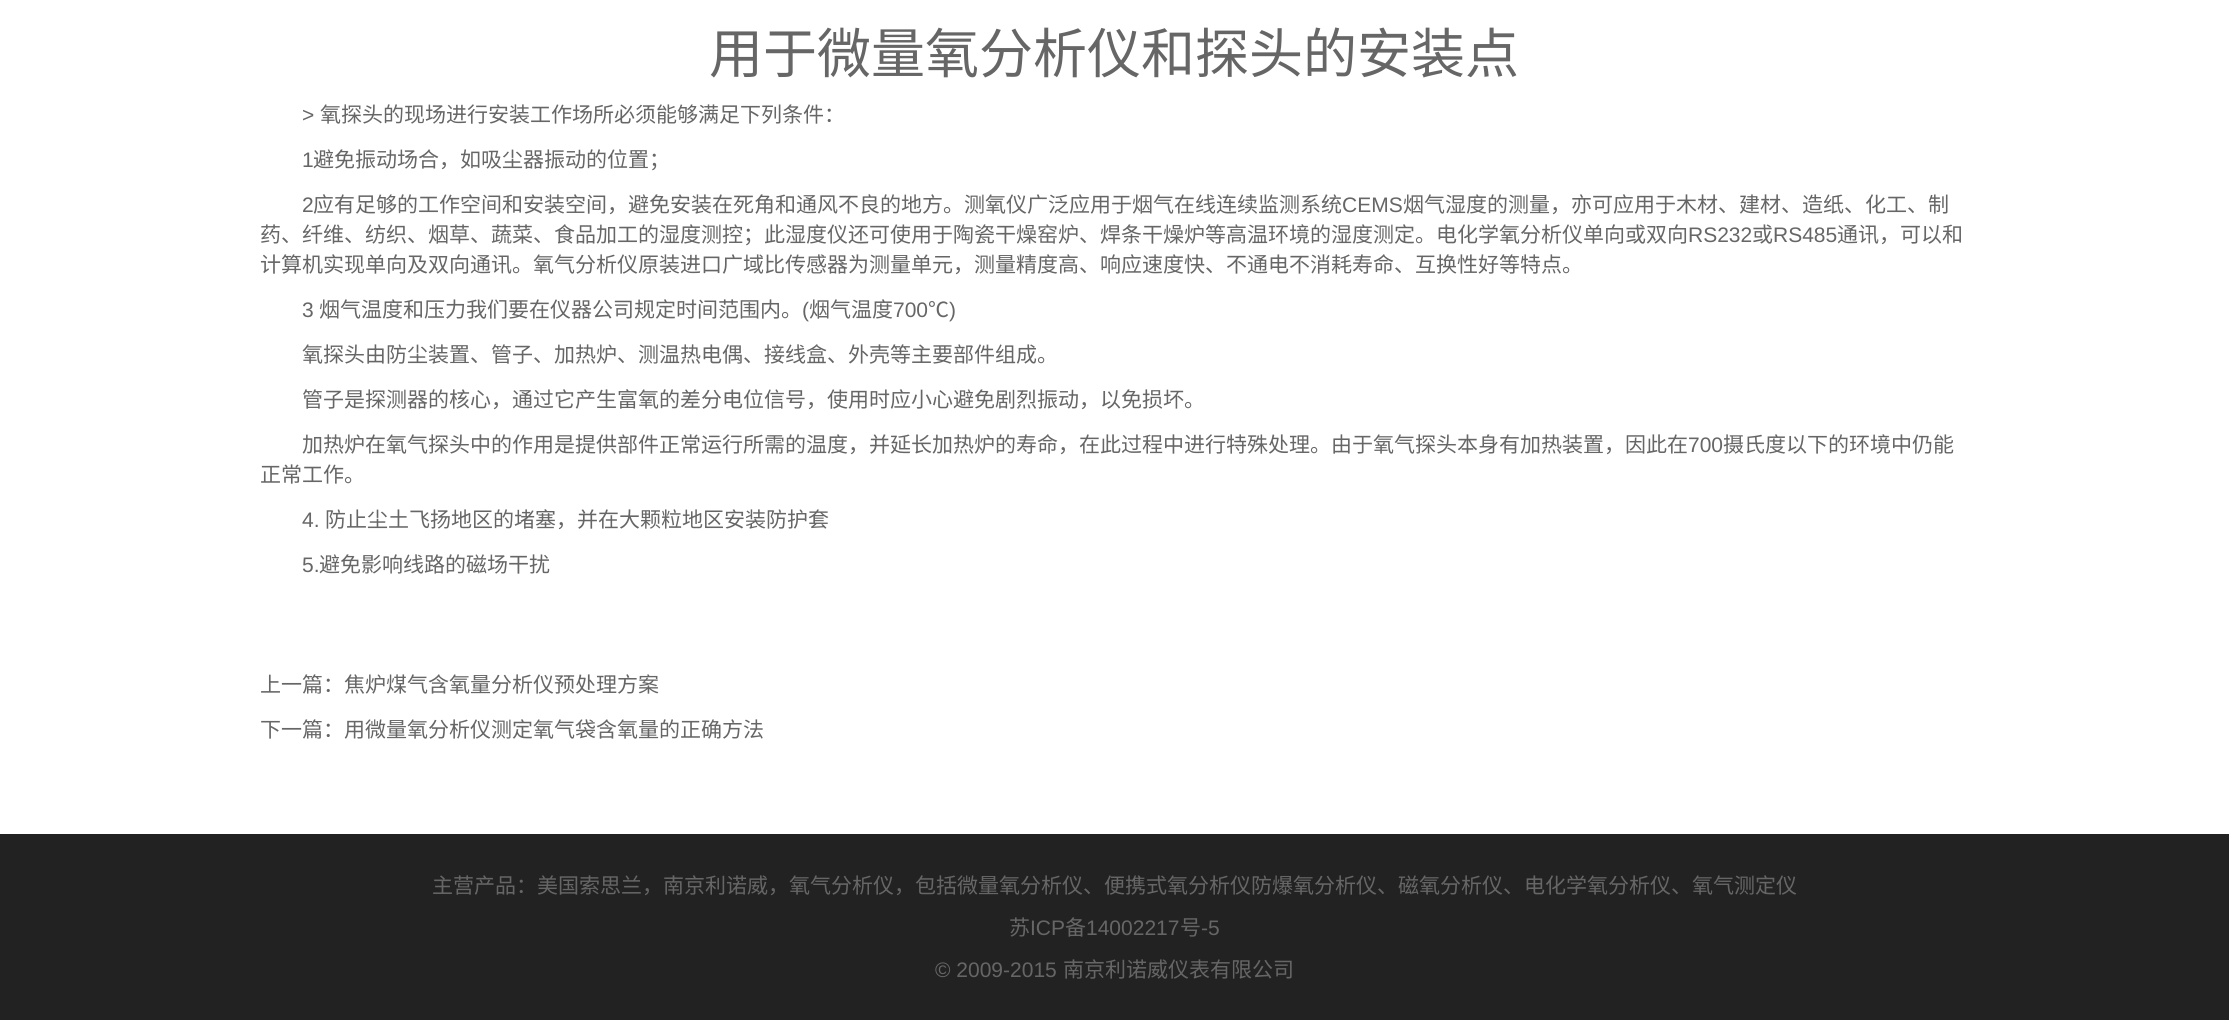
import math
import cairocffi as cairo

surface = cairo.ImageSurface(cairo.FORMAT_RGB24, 2229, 1020)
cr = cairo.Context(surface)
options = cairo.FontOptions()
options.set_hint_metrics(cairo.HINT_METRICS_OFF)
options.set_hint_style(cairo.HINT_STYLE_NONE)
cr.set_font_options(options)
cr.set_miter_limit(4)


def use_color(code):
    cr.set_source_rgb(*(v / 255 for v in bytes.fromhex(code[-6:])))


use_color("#ffffff")
cr.paint()
cr.select_font_face("Noto Sans CJK SC")
cr.set_font_size(54)
use_color("#666666")
cr.move_to(709, 73)
cr.show_text("用于微量氧分析仪和探头的安装点")
cr.select_font_face("Liberation Sans")
cr.set_font_size(21)
cr.move_to(302, 122)
cr.show_text(">")
cr.select_font_face("Noto Sans CJK SC")
cr.move_to(320, 122)
cr.show_text("氧探头的现场进行安装工作场所必须能够满足下列条件：")
cr.select_font_face("Liberation Sans")
cr.move_to(302, 167)
cr.show_text("1")
cr.select_font_face("Noto Sans CJK SC")
cr.move_to(313, 167)
cr.show_text("避免振动场合，如吸尘器振动的位置；")
cr.select_font_face("Liberation Sans")
cr.move_to(302, 212)
cr.show_text("2")
cr.select_font_face("Noto Sans CJK SC")
cr.move_to(313, 212)
cr.show_text("应有足够的工作空间和安装空间，避免安装在死角和通风不良的地方。测氧仪广泛应用于烟气在线连续监测系统")
cr.select_font_face("Liberation Sans")
cr.move_to(1342, 212)
cr.show_text("CEMS")
cr.select_font_face("Noto Sans CJK SC")
cr.move_to(1403, 212)
cr.show_text("烟气湿度的测量，亦可应用于木材、建材、造纸、化工、制")
cr.move_to(260, 242)
cr.show_text("药、纤维、纺织、烟草、蔬菜、食品加工的湿度测控；此湿度仪还可使用于陶瓷干燥窑炉、焊条干燥炉等高温环境的湿度测定。电化学氧分析仪单向或双向")
cr.select_font_face("Liberation Sans")
cr.move_to(1688, 242)
cr.show_text("RS232")
cr.select_font_face("Noto Sans CJK SC")
cr.move_to(1752, 242)
cr.show_text("或")
cr.select_font_face("Liberation Sans")
cr.move_to(1773, 242)
cr.show_text("RS485")
cr.select_font_face("Noto Sans CJK SC")
cr.move_to(1837, 242)
cr.show_text("通讯，可以和")
cr.move_to(260, 272)
cr.show_text("计算机实现单向及双向通讯。氧气分析仪原装进口广域比传感器为测量单元，测量精度高、响应速度快、不通电不消耗寿命、互换性好等特点。")
cr.select_font_face("Liberation Sans")
cr.move_to(302, 317)
cr.show_text("3")
cr.select_font_face("Noto Sans CJK SC")
cr.move_to(319, 317)
cr.show_text("烟气温度和压力我们要在仪器公司规定时间范围内。")
cr.select_font_face("Liberation Sans")
cr.move_to(802, 317)
cr.show_text("(")
cr.select_font_face("Noto Sans CJK SC")
cr.move_to(809, 317)
cr.show_text("烟气温度")
cr.select_font_face("Liberation Sans")
cr.move_to(893, 317)
cr.show_text("700")
cr.select_font_face("Noto Sans CJK SC")
cr.move_to(928, 317)
cr.show_text("℃")
cr.select_font_face("Liberation Sans")
cr.move_to(949, 317)
cr.show_text(")")
cr.select_font_face("Noto Sans CJK SC")
cr.move_to(302, 362)
cr.show_text("氧探头由防尘装置、管子、加热炉、测温热电偶、接线盒、外壳等主要部件组成。")
cr.move_to(302, 407)
cr.show_text("管子是探测器的核心，通过它产生富氧的差分电位信号，使用时应小心避免剧烈振动，以免损坏。")
cr.move_to(302, 452)
cr.show_text("加热炉在氧气探头中的作用是提供部件正常运行所需的温度，并延长加热炉的寿命，在此过程中进行特殊处理。由于氧气探头本身有加热装置，因此在")
cr.select_font_face("Liberation Sans")
cr.move_to(1688, 452)
cr.show_text("700")
cr.select_font_face("Noto Sans CJK SC")
cr.move_to(1723, 452)
cr.show_text("摄氏度以下的环境中仍能")
cr.move_to(260, 482)
cr.show_text("正常工作。")
cr.select_font_face("Liberation Sans")
cr.move_to(302, 527)
cr.show_text("4.")
cr.select_font_face("Noto Sans CJK SC")
cr.move_to(325, 527)
cr.show_text("防止尘土飞扬地区的堵塞，并在大颗粒地区安装防护套")
cr.select_font_face("Liberation Sans")
cr.move_to(302, 572)
cr.show_text("5.")
cr.select_font_face("Noto Sans CJK SC")
cr.move_to(319, 572)
cr.show_text("避免影响线路的磁场干扰")
cr.move_to(260, 692)
cr.show_text("上一篇：焦炉煤气含氧量分析仪预处理方案")
cr.move_to(260, 737)
cr.show_text("下一篇：用微量氧分析仪测定氧气袋含氧量的正确方法")
use_color("#222222")
cr.rectangle(0, 834, 2229, 186)
cr.fill()
use_color("#666666")
cr.move_to(432, 893)
cr.show_text("主营产品：美国索思兰，南京利诺威，氧气分析仪，包括微量氧分析仪、便携式氧分析仪防爆氧分析仪、磁氧分析仪、电化学氧分析仪、氧气测定仪")
cr.move_to(1009, 935)
cr.show_text("苏")
cr.select_font_face("Liberation Sans")
cr.move_to(1030, 935)
cr.show_text("ICP")
cr.select_font_face("Noto Sans CJK SC")
cr.move_to(1065, 935)
cr.show_text("备")
cr.select_font_face("Liberation Sans")
cr.move_to(1086, 935)
cr.show_text("14002217")
cr.select_font_face("Noto Sans CJK SC")
cr.move_to(1180, 935)
cr.show_text("号")
cr.select_font_face("Liberation Sans")
cr.move_to(1201, 935)
cr.show_text("-5")
cr.move_to(935, 977)
cr.show_text("© 2009-2015")
cr.select_font_face("Noto Sans CJK SC")
cr.move_to(1063, 977)
cr.show_text("南京利诺威仪表有限公司")
surface.write_to_png("result.png")
